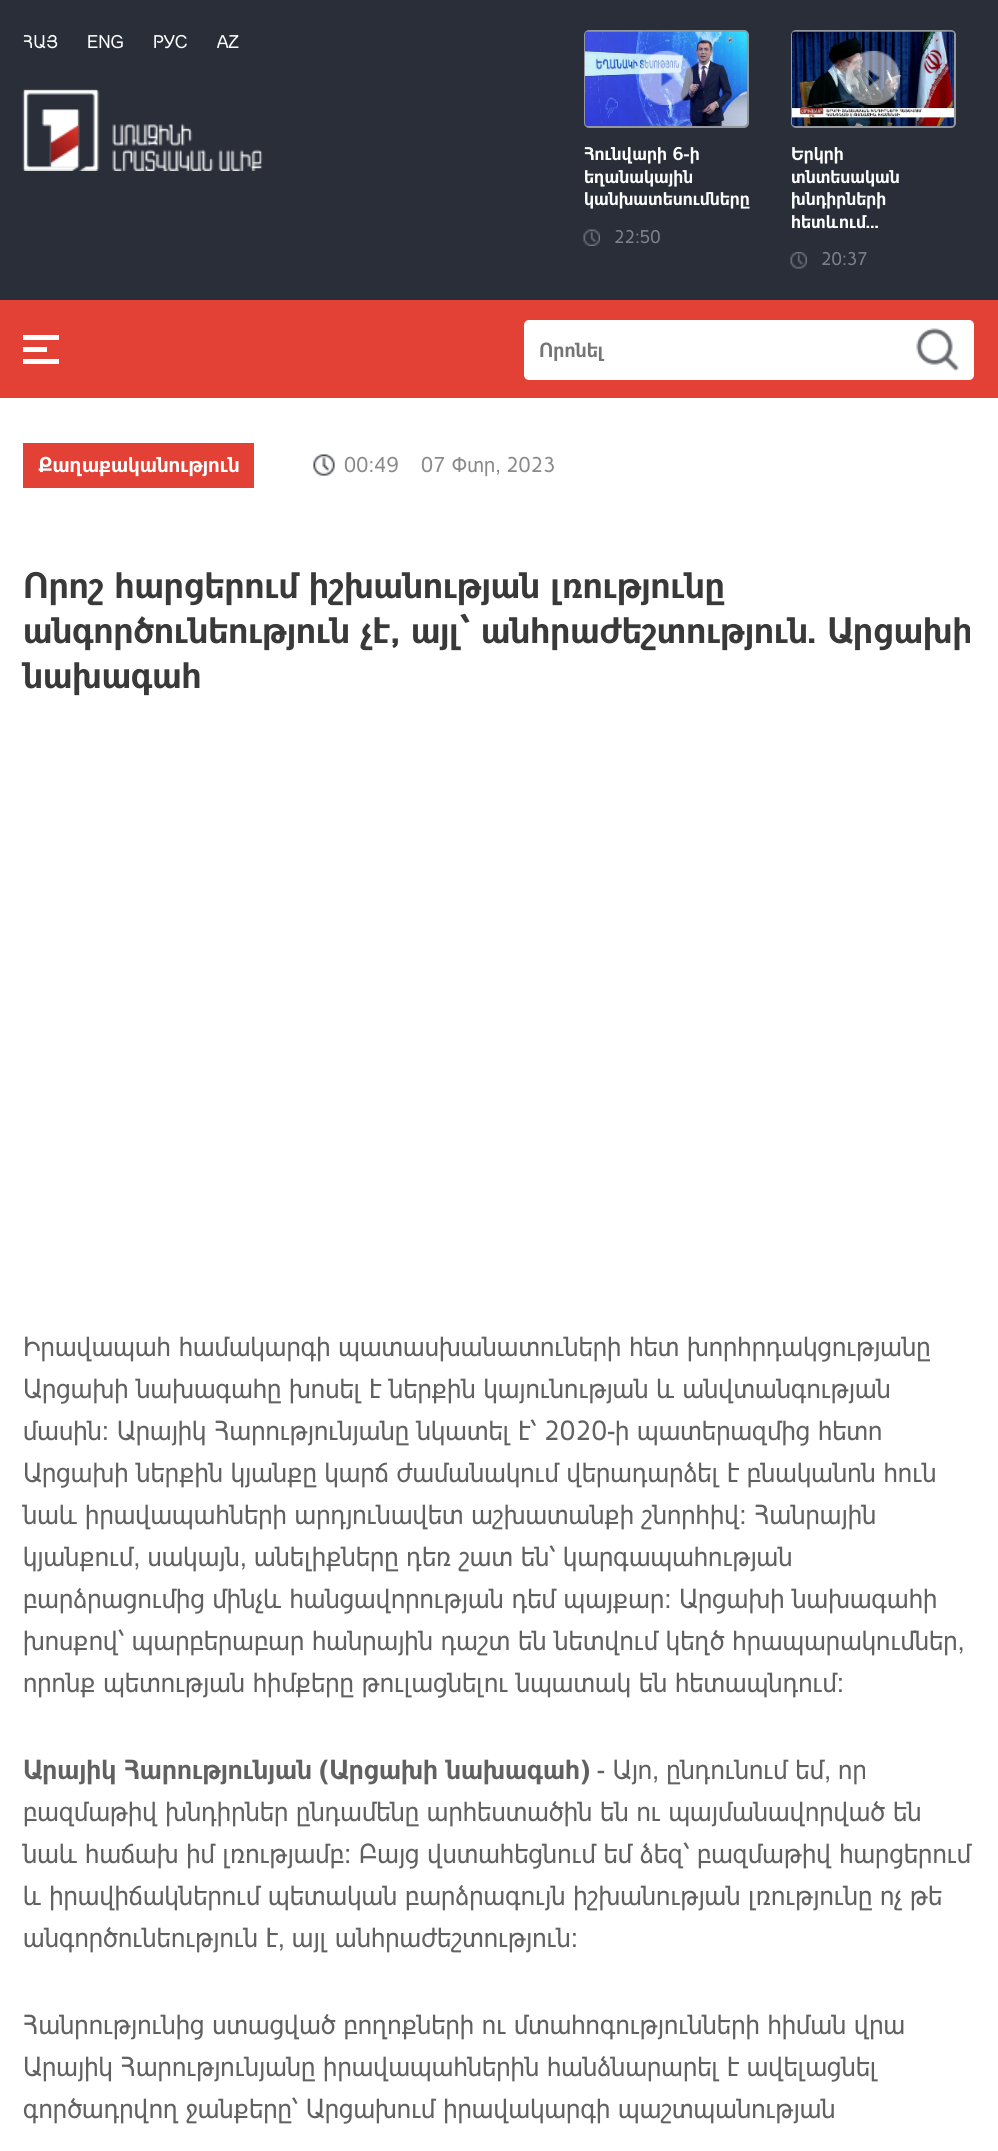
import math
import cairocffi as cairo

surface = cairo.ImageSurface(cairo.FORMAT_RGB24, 998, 2151)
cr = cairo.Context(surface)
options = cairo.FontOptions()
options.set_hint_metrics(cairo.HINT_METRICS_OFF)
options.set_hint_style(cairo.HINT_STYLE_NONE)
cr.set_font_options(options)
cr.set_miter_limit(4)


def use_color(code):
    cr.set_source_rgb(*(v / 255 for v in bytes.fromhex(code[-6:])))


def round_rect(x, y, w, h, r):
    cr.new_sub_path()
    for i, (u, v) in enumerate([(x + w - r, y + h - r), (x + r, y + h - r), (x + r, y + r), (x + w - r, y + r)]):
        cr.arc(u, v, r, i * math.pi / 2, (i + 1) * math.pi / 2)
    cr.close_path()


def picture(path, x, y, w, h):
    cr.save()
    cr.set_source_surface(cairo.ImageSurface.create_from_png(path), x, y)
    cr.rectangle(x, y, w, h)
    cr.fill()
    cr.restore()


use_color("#ffffff")
cr.paint()
use_color("#292e39")
cr.rectangle(0, 0, 998, 300)
cr.fill()
cr.select_font_face("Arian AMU")
cr.set_font_size(18)
use_color("#ffffff")
cr.move_to(23, 48)
cr.show_text("ՀԱՅ")
cr.move_to(87, 48)
cr.show_text("ENG")
cr.move_to(153, 48)
cr.show_text("РУС")
cr.move_to(217, 48)
cr.show_text("AZ")
picture("img1.png", 22, 89, 241, 82)
round_rect(585, 31, 163, 96, 4)
use_color("#94979c")
cr.stroke()
picture("img2.png", 585, 31, 162, 95)
picture("img3.png", 639, 51, 54, 54)
cr.select_font_face("Arian AMU", cairo.FONT_SLANT_NORMAL, cairo.FONT_WEIGHT_BOLD)
use_color("#ffffff")
cr.move_to(584, 160)
cr.show_text("Հունվարի 6-ի")
cr.move_to(584, 183)
cr.show_text("եղանակային")
cr.move_to(584, 205)
cr.show_text("կանխատեսումները")
picture("img4.png", 583, 229, 17, 17)
cr.select_font_face("Arian AMU")
use_color("#7f8288")
cr.move_to(614, 243)
cr.show_text("22:50")
round_rect(792, 31, 163, 96, 4)
use_color("#94979c")
cr.stroke()
picture("img5.png", 792, 31, 162, 95)
picture("img6.png", 846, 51, 54, 54)
cr.select_font_face("Arian AMU", cairo.FONT_SLANT_NORMAL, cairo.FONT_WEIGHT_BOLD)
use_color("#ffffff")
cr.move_to(791, 160)
cr.show_text("Երկրի")
cr.move_to(791, 183)
cr.show_text("տնտեսական")
cr.move_to(791, 205)
cr.show_text("խնդիրների")
cr.move_to(791, 228)
cr.show_text("հետևում...")
picture("img7.png", 790, 252, 17, 17)
cr.select_font_face("Arian AMU")
use_color("#7f8288")
cr.move_to(821, 265)
cr.show_text("20:37")
use_color("#e34135")
cr.rectangle(0, 300, 998, 98)
cr.fill()
use_color("#ffffff")
cr.rectangle(23, 335, 36, 5)
cr.fill()
cr.rectangle(23, 347, 24, 5)
cr.fill()
cr.rectangle(23, 359, 36, 5)
cr.fill()
round_rect(524, 320, 450, 60, 5)
cr.fill()
cr.select_font_face("Arian AMU", cairo.FONT_SLANT_NORMAL, cairo.FONT_WEIGHT_BOLD)
cr.set_font_size(20)
use_color("#757575")
cr.move_to(539, 357)
cr.show_text("Որոնել")
picture("img8.png", 916, 328, 43, 43)
use_color("#e34135")
cr.rectangle(23, 443, 231, 45)
cr.fill()
cr.set_font_size(21)
use_color("#ffffff")
cr.move_to(38, 472)
cr.show_text("Քաղաքականություն")
picture("img9.png", 313, 454, 22, 22)
cr.select_font_face("Arian AMU")
use_color("#8a8a8a")
cr.move_to(344, 472)
cr.show_text("00:49")
cr.move_to(421, 472)
cr.show_text("07 Փտր, 2023")
cr.select_font_face("Arian AMU", cairo.FONT_SLANT_NORMAL, cairo.FONT_WEIGHT_BOLD)
cr.set_font_size(36)
use_color("#393939")
cr.move_to(23, 598)
cr.show_text("Որոշ հարցերում իշխանության լռությունը")
cr.move_to(23, 643)
cr.show_text("անգործունեություն չէ, այլ՝ անհրաժեշտություն. Արցախի")
cr.move_to(23, 688)
cr.show_text("նախագահ")
cr.select_font_face("Arian AMU")
cr.set_font_size(27)
use_color("#616161")
cr.move_to(23, 1356)
cr.show_text("Իրավապահ համակարգի պատասխանատուների հետ խորհրդակցությանը")
cr.move_to(23, 1398)
cr.show_text("Արցախի նախագահը խոսել է ներքին կայունության և անվտանգության")
cr.move_to(23, 1440)
cr.show_text("մասին: Արայիկ Հարությունյանը նկատել է՝ 2020-ի պատերազմից հետո")
cr.move_to(23, 1482)
cr.show_text("Արցախի ներքին կյանքը կարճ ժամանակում վերադարձել է բնականոն հուն")
cr.move_to(23, 1524)
cr.show_text("նաև իրավապահների արդյունավետ աշխատանքի շնորհիվ: Հանրային")
cr.move_to(23, 1566)
cr.show_text("կյանքում, սակայն, անելիքները դեռ շատ են՝ կարգապահության")
cr.move_to(23, 1608)
cr.show_text("բարձրացումից մինչև հանցավորության դեմ պայքար: Արցախի նախագահի")
cr.move_to(23, 1650)
cr.show_text("խոսքով՝ պարբերաբար հանրային դաշտ են նետվում կեղծ հրապարակումներ,")
cr.move_to(23, 1692)
cr.show_text("որոնք պետության հիմքերը թուլացնելու նպատակ են հետապնդում:")
cr.select_font_face("Arian AMU", cairo.FONT_SLANT_NORMAL, cairo.FONT_WEIGHT_BOLD)
cr.move_to(23, 1779)
cr.show_text("Արայիկ Հարությունյան (Արցախի նախագահ)")
cr.select_font_face("Arian AMU")
cr.move_to(597, 1779)
cr.show_text("- Այո, ընդունում եմ, որ")
cr.move_to(23, 1821)
cr.show_text("բազմաթիվ խնդիրներ ընդամենը արհեստածին են ու պայմանավորված են")
cr.move_to(23, 1863)
cr.show_text("նաև հաճախ իմ լռությամբ: Բայց վստահեցնում եմ ձեզ՝ բազմաթիվ հարցերում")
cr.move_to(23, 1905)
cr.show_text("և իրավիճակներում պետական բարձրագույն իշխանության լռությունը ոչ թե")
cr.move_to(23, 1947)
cr.show_text("անգործունեություն է, այլ անհրաժեշտություն:")
cr.move_to(23, 2034)
cr.show_text("Հանրությունից ստացված բողոքների ու մտահոգությունների հիման վրա")
cr.move_to(23, 2076)
cr.show_text("Արայիկ Հարությունյանը իրավապահներին հանձնարարել է ավելացնել")
cr.move_to(23, 2118)
cr.show_text("գործադրվող ջանքերը՝ Արցախում իրավակարգի պաշտպանության")
surface.write_to_png("result.png")
